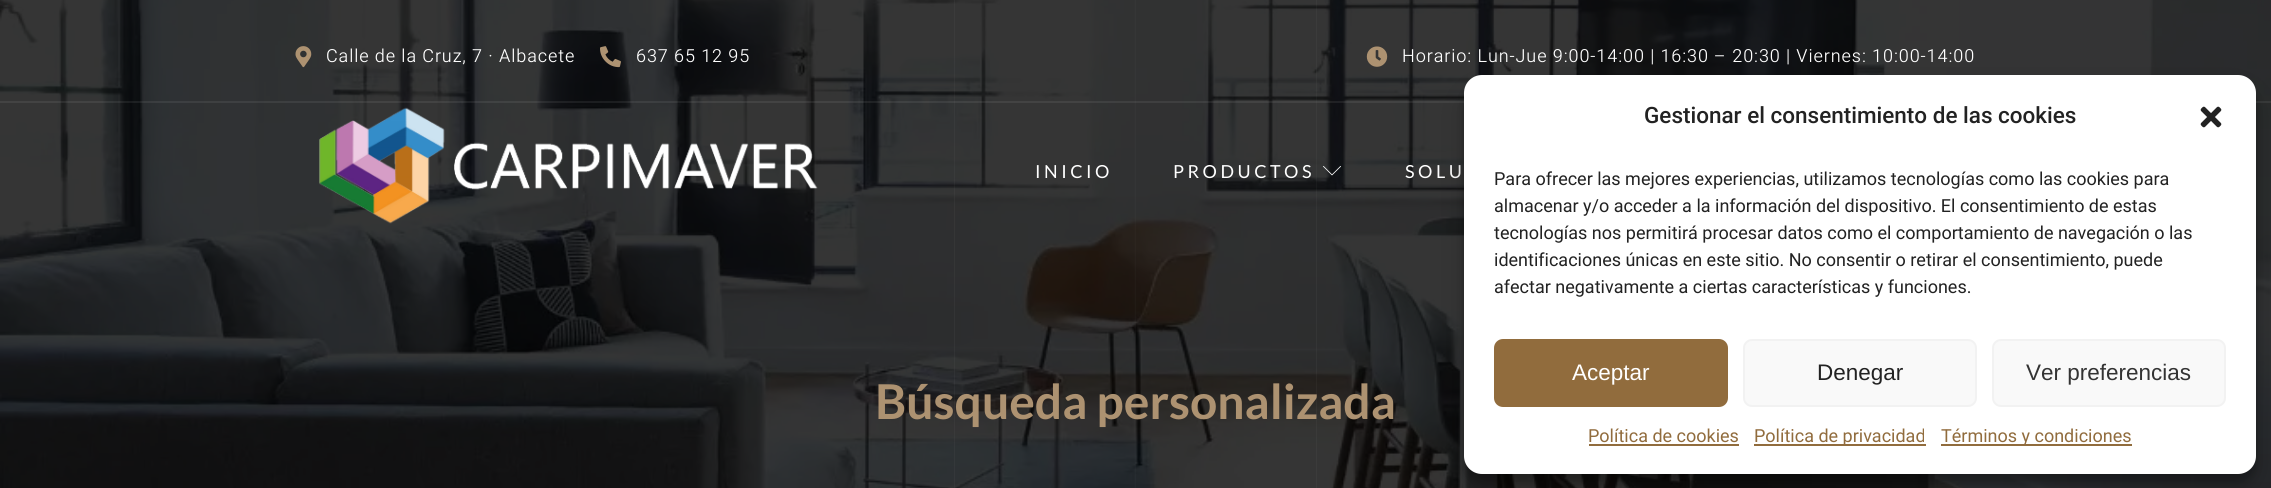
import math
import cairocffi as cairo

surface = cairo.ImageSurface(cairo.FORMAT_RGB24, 2271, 488)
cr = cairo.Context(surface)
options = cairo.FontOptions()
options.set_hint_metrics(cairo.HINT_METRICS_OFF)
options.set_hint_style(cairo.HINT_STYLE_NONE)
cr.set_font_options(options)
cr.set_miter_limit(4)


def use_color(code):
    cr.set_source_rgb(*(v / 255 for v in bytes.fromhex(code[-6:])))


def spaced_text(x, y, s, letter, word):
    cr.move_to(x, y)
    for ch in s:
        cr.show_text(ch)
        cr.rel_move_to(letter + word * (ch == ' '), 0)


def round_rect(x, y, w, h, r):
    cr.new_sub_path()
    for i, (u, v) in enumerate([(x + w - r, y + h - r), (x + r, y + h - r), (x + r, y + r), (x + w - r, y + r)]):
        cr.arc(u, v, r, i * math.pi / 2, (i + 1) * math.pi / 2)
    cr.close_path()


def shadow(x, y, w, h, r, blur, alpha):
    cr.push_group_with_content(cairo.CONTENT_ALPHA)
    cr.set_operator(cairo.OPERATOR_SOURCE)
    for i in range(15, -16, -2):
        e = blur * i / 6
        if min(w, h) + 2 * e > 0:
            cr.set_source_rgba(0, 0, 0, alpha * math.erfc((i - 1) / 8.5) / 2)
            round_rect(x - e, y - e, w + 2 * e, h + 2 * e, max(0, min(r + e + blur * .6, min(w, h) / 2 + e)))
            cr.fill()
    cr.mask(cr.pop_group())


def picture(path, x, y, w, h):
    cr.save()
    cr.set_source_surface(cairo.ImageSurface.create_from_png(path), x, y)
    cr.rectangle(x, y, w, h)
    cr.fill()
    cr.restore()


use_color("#ffffff")
cr.paint()
picture("img6.png", 0, 0, 2271, 488)
picture("img7.png", 954, 0, 363, 488)
cr.set_source_rgba(0.882, 0.882, 0.882, 0.08)
cr.rectangle(0, 101, 2271, 2)
cr.fill()
picture("img1.png", 295, 46, 17, 22)
cr.select_font_face("Heebo Light")
cr.set_font_size(18)
use_color("#ffffff")
spaced_text(326, 62, "Calle de la Cruz, 7 · Albacete", 0.9, 0)
picture("img2.png", 600, 46, 21, 22)
spaced_text(636, 62, "637 65 12 95", 0.9, 0)
picture("img3.png", 1366, 46, 22, 21)
spaced_text(1402, 62, "Horario: Lun-Jue 9:00-14:00 | 16:30 – 20:30 | Viernes: 10:00-14:00", 0.9, 0)
picture("img4.png", 319, 107, 499, 117)
cr.select_font_face("Lato")
spaced_text(1035, 178, "INICIO", 3.5, 0)
spaced_text(1173, 178, "PRODUCTOS", 3.5, 0)
picture("img5.png", 1323, 166, 18, 10)
spaced_text(1405, 178, "SOLU", 3.5, 0)
cr.select_font_face("Lato", cairo.FONT_SLANT_NORMAL, cairo.FONT_WEIGHT_BOLD)
cr.set_font_size(48)
use_color("#ad9271")
cr.move_to(875, 419)
cr.show_text("Búsqueda personalizada")
use_color("#000000")
shadow(1464, 84, 792, 399, 18, 4.5, 0.23)
shadow(1464, 90, 792, 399, 18, 15, 0.19)
use_color("#ffffff")
round_rect(1464, 75, 792, 399, 18)
cr.fill()
cr.select_font_face("Roboto Medium")
cr.set_font_size(22.5)
use_color("#222222")
cr.move_to(1644, 123)
cr.show_text("Gestionar el consentimiento de las cookies")
picture("img8.png", 2200, 106, 22, 22)
cr.select_font_face("Roboto")
cr.set_font_size(18)
cr.move_to(1494, 185)
cr.show_text("Para ofrecer las mejores experiencias, utilizamos tecnologías como las cookies para")
cr.move_to(1494, 212)
cr.show_text("almacenar y/o acceder a la información del dispositivo. El consentimiento de estas")
cr.move_to(1494, 239)
cr.show_text("tecnologías nos permitirá procesar datos como el comportamiento de navegación o las")
cr.move_to(1494, 266)
cr.show_text("identificaciones únicas en este sitio. No consentir o retirar el consentimiento, puede")
cr.move_to(1494, 293)
cr.show_text("afectar negativamente a ciertas características y funciones.")
use_color("#916c3d")
round_rect(1495, 340, 232, 66, 8)
cr.fill_preserve()
cr.stroke()
cr.select_font_face("Liberation Sans")
cr.set_font_size(22.5)
use_color("#ffffff")
cr.move_to(1572, 380)
cr.show_text("Aceptar")
use_color("#f9f9f9")
round_rect(1744, 340, 232, 66, 8)
cr.fill_preserve()
use_color("#f2f2f2")
cr.stroke()
use_color("#222222")
cr.move_to(1817, 380)
cr.show_text("Denegar")
use_color("#f9f9f9")
round_rect(1993, 340, 232, 66, 8)
cr.fill_preserve()
use_color("#f2f2f2")
cr.stroke()
use_color("#333333")
cr.move_to(2026, 380)
cr.show_text("Ver preferencias")
cr.select_font_face("Roboto")
cr.set_font_size(18)
use_color("#916c3d")
cr.move_to(1588, 442)
cr.show_text("Política de cookies")
cr.rectangle(1589, 444, 150, 2)
cr.fill()
cr.rectangle(1754, 444, 172, 2)
cr.fill()
cr.move_to(1754, 442)
cr.show_text("Política de privacidad")
cr.rectangle(1941, 444, 191, 2)
cr.fill()
cr.move_to(1941, 442)
cr.show_text("Términos y condiciones")
surface.write_to_png("result.png")
